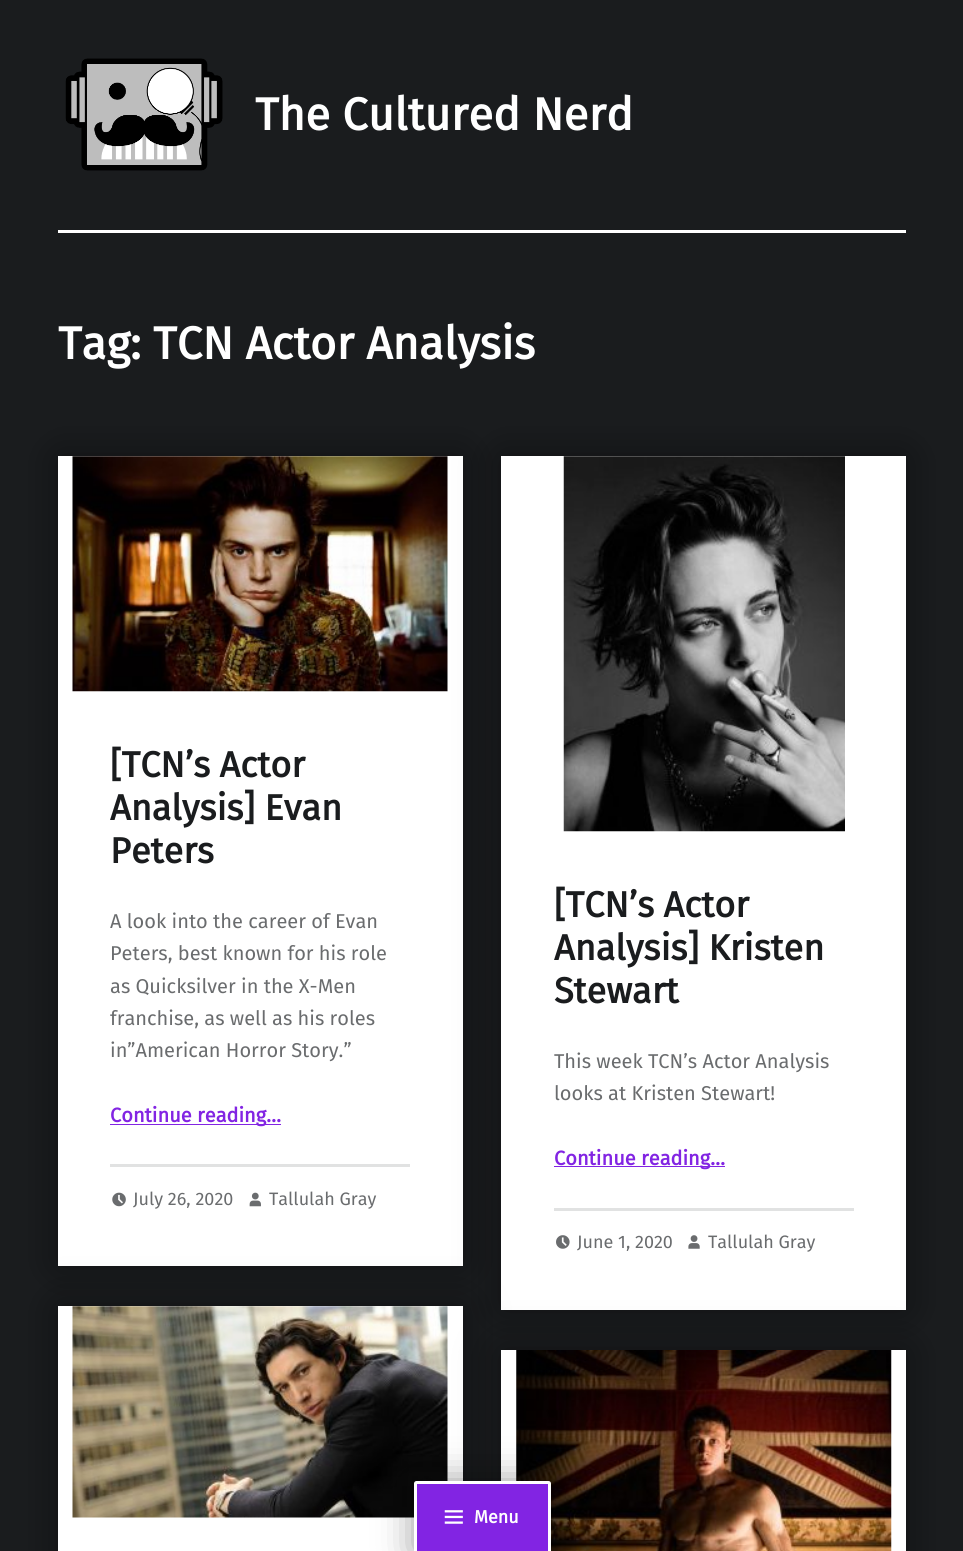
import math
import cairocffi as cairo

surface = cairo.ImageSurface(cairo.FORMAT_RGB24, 963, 1551)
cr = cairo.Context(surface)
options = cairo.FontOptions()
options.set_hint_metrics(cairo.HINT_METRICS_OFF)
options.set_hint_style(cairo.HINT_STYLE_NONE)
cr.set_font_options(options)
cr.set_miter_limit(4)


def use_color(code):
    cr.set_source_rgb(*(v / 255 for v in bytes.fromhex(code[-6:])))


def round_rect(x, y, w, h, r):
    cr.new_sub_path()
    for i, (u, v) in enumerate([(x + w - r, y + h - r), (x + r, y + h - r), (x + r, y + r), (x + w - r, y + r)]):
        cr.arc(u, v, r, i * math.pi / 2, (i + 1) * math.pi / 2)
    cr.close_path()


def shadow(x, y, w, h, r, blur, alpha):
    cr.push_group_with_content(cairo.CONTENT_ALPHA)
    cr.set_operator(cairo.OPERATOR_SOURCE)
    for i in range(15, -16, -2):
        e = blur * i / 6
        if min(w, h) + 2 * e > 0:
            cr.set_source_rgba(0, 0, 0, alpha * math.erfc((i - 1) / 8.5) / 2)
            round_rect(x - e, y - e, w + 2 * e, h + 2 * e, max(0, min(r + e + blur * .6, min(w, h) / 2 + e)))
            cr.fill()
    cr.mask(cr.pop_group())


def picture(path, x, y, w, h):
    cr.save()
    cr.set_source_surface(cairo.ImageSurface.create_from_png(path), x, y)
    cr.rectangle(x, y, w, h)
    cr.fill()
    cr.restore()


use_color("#1a1c1e")
cr.paint()
picture("img1.png", 65, 58, 158, 113)
cr.select_font_face("Fira Sans", cairo.FONT_SLANT_NORMAL, cairo.FONT_WEIGHT_BOLD)
cr.set_font_size(45.6)
use_color("#ffffff")
cr.move_to(255, 130)
cr.show_text("The Cultured Nerd")
use_color("#000000")
shadow(58, 456, 405, 810, 0, 20, 0.4)
use_color("#ffffff")
cr.rectangle(58, 456, 405, 810)
cr.fill()
picture("img3.png", 72, 456, 376, 236)
use_color("#000000")
shadow(501, 456, 405, 854, 0, 20, 0.4)
use_color("#ffffff")
cr.rectangle(501, 456, 405, 854)
cr.fill()
use_color("#000000")
shadow(58, 1306, 405, 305, 0, 20, 0.4)
use_color("#ffffff")
cr.rectangle(58, 1306, 405, 245)
cr.fill()
picture("img9.png", 72, 1306, 376, 212)
use_color("#000000")
shadow(501, 1350, 405, 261, 0, 20, 0.4)
use_color("#ffffff")
cr.rectangle(501, 1350, 405, 201)
cr.fill()
picture("img10.png", 516, 1350, 376, 201)
use_color("#000000")
shadow(414, 1481, 137, 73, 2.5, 18, 0.4)
use_color("#8224e3")
round_rect(415.5, 1482.5, 134, 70, 1)
cr.fill_preserve()
use_color("#ffffff")
cr.set_line_width(3)
cr.stroke()
picture("img2.png", 444, 1510, 19, 14)
cr.set_font_size(18)
cr.move_to(474, 1523)
cr.show_text("Menu")
cr.rectangle(58, 230, 848, 3)
cr.fill()
cr.set_font_size(45.6)
cr.move_to(58, 359)
cr.show_text("Tag: TCN Actor Analysis")
cr.set_font_size(36)
use_color("#1a1c1e")
cr.move_to(110, 777)
cr.show_text("[TCN’s Actor")
cr.move_to(110, 820)
cr.show_text("Analysis] Evan")
cr.move_to(110, 863)
cr.show_text("Peters")
cr.select_font_face("Fira Sans")
cr.set_font_size(20)
use_color("#6a6c6e")
cr.move_to(110, 928)
cr.show_text("A look into the career of Evan")
cr.move_to(110, 960)
cr.show_text("Peters, best known for his role")
cr.move_to(110, 993)
cr.show_text("as Quicksilver in the X-Men")
cr.move_to(110, 1025)
cr.show_text("franchise, as well as his roles")
cr.move_to(110, 1057)
cr.show_text("in”American Horror Story.”")
use_color("#8224e3")
cr.rectangle(110, 1124, 156, 1)
cr.fill()
cr.select_font_face("Fira Sans", cairo.FONT_SLANT_NORMAL, cairo.FONT_WEIGHT_BOLD)
cr.move_to(110, 1122)
cr.show_text("Continue reading…")
cr.rectangle(266, 1124, 15, 1)
cr.fill()
use_color("#e1e2e2")
cr.rectangle(110, 1164, 300, 3)
cr.fill()
picture("img4.png", 112, 1192, 14, 15)
cr.select_font_face("Fira Sans")
cr.set_font_size(18)
use_color("#6a6c6e")
cr.move_to(133, 1205)
cr.show_text("July 26, 2020")
picture("img5.png", 249, 1192, 12, 15)
cr.move_to(269, 1205)
cr.show_text("Tallulah Gray")
picture("img6.png", 563, 456, 282, 376)
cr.select_font_face("Fira Sans", cairo.FONT_SLANT_NORMAL, cairo.FONT_WEIGHT_BOLD)
cr.set_font_size(36)
use_color("#1a1c1e")
cr.move_to(554, 917)
cr.show_text("[TCN’s Actor")
cr.move_to(554, 960)
cr.show_text("Analysis] Kristen")
cr.move_to(554, 1003)
cr.show_text("Stewart")
cr.select_font_face("Fira Sans")
cr.set_font_size(20)
use_color("#6a6c6e")
cr.move_to(554, 1068)
cr.show_text("This week TCN’s Actor Analysis")
cr.move_to(554, 1100)
cr.show_text("looks at Kristen Stewart!")
use_color("#8224e3")
cr.rectangle(554, 1166, 156, 1)
cr.fill()
cr.select_font_face("Fira Sans", cairo.FONT_SLANT_NORMAL, cairo.FONT_WEIGHT_BOLD)
cr.move_to(554, 1165)
cr.show_text("Continue reading…")
cr.rectangle(710, 1166, 15, 1)
cr.fill()
use_color("#e1e2e2")
cr.rectangle(554, 1208, 300, 3)
cr.fill()
picture("img7.png", 556, 1235, 14, 14)
cr.select_font_face("Fira Sans")
cr.set_font_size(18)
use_color("#6a6c6e")
cr.move_to(577, 1248)
cr.show_text("June 1, 2020")
picture("img8.png", 688, 1235, 12, 14)
cr.move_to(708, 1248)
cr.show_text("Tallulah Gray")
surface.write_to_png("result.png")
